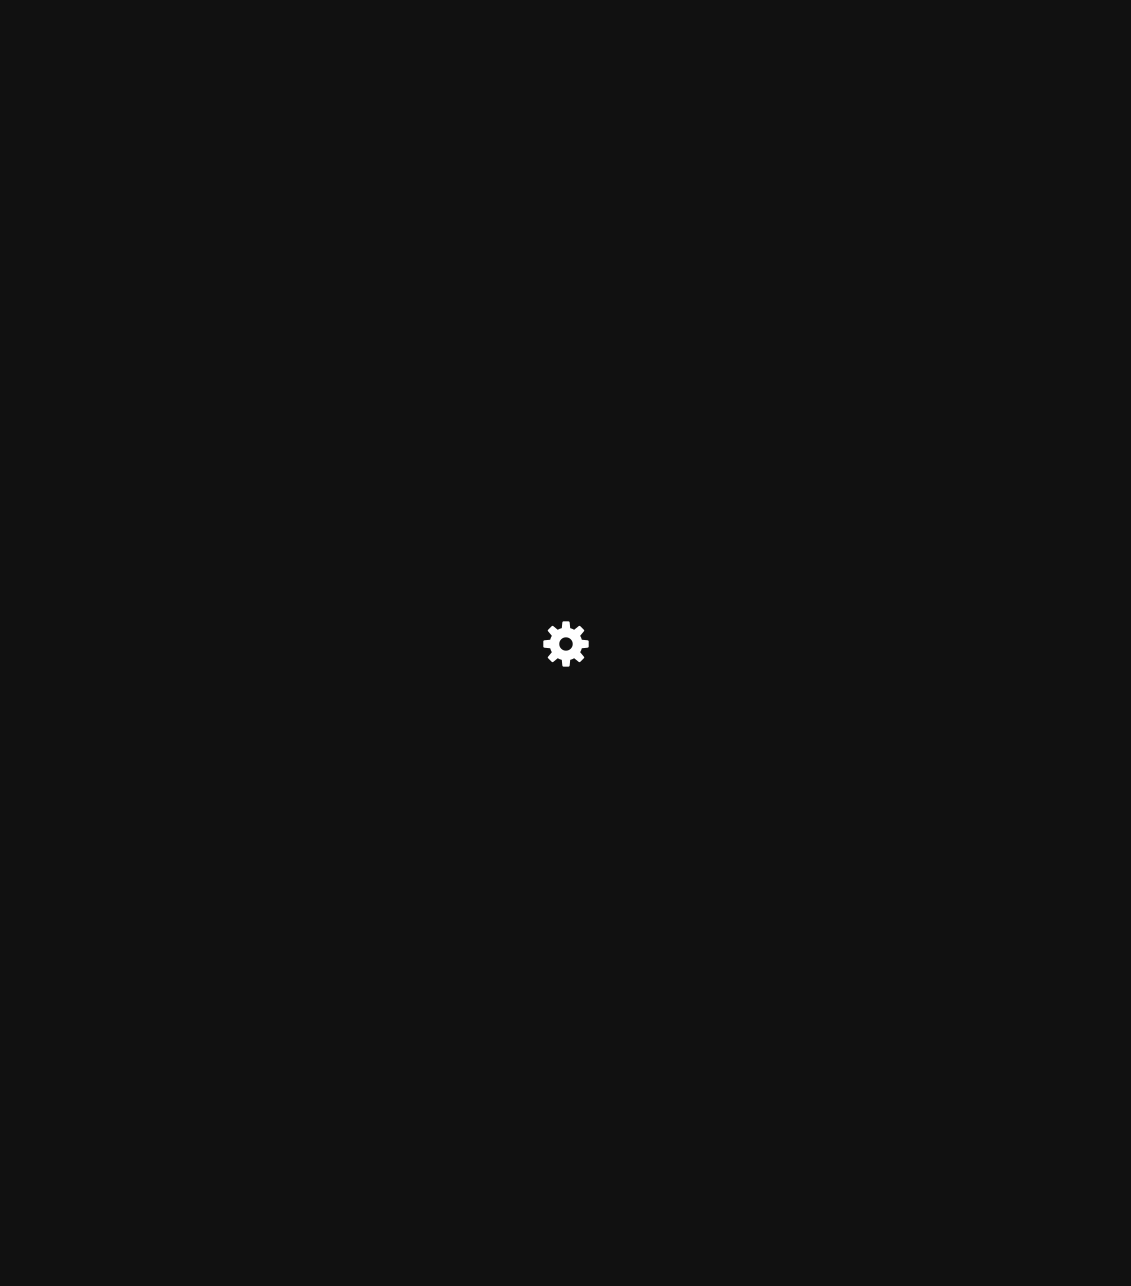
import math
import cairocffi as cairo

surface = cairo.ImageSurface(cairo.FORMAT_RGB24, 1131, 1286)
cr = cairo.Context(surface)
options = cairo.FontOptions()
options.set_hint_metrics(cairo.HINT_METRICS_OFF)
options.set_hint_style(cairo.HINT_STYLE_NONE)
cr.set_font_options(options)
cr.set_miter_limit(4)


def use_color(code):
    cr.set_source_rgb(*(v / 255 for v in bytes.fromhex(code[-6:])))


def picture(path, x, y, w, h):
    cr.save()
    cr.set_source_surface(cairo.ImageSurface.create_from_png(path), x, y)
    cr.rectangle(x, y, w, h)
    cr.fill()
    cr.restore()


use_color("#111111")
cr.paint()
picture("img1.png", 543, 621, 46, 46)
surface.write_to_png("result.png")
